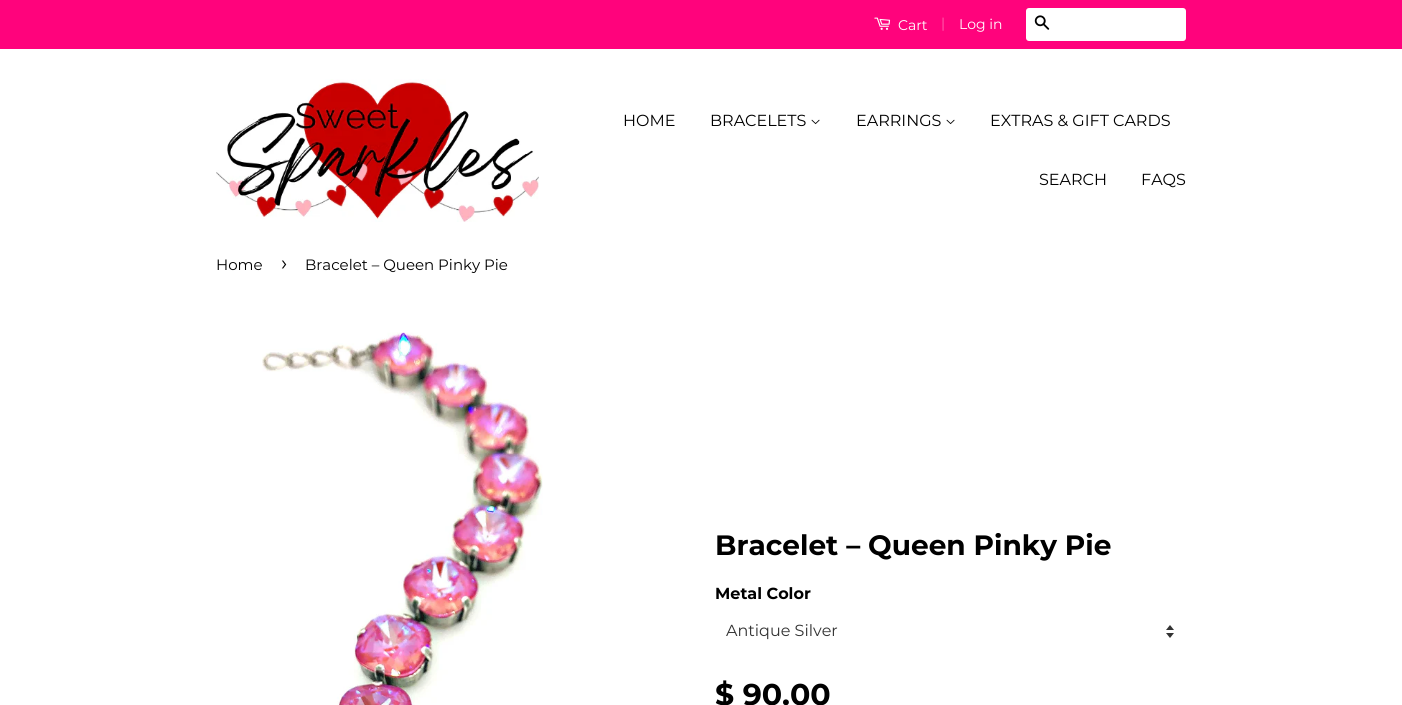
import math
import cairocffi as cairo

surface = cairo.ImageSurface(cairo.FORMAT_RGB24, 1402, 705)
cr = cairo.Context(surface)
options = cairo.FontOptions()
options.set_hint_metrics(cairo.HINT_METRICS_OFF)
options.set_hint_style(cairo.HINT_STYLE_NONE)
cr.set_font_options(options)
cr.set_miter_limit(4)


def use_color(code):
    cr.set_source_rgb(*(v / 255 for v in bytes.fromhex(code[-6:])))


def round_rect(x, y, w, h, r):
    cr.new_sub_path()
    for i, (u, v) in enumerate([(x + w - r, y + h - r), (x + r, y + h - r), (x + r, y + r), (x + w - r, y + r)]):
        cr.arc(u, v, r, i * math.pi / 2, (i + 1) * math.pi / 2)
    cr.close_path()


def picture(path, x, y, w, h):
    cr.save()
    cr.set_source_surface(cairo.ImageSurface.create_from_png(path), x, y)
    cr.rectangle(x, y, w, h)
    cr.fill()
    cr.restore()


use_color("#ffffff")
cr.paint()
use_color("#ff037c")
cr.rectangle(0, 0, 1402, 49)
cr.fill()
picture("img1.png", 874, 17, 17, 13)
cr.select_font_face("Montserrat")
cr.set_font_size(14)
use_color("#ffffff")
cr.move_to(898, 30)
cr.show_text("Cart")
use_color("#ff68b0")
cr.move_to(941, 28)
cr.show_text("|")
use_color("#ffffff")
cr.move_to(959, 29)
cr.show_text("Log in")
round_rect(1026, 8, 160, 33, 3)
cr.fill()
picture("img2.png", 1034, 15, 16, 15)
picture("img3.png", 216, 79, 323, 143)
cr.set_font_size(16)
use_color("#000000")
cr.move_to(623, 126)
cr.show_text("HOME")
cr.move_to(710, 126)
cr.show_text("BRACELETS")
picture("img4.png", 811, 119, 9, 6)
cr.move_to(856, 126)
cr.show_text("EARRINGS")
picture("img4.png", 946, 119, 9, 6)
cr.move_to(990, 126)
cr.show_text("EXTRAS & GIFT CARDS")
cr.move_to(1039, 185)
cr.show_text("SEARCH")
cr.move_to(1141, 185)
cr.show_text("FAQS")
cr.set_font_size(15)
cr.move_to(216, 270)
cr.show_text("Home")
cr.set_font_size(21)
cr.move_to(281, 270)
cr.show_text("›")
cr.set_font_size(15)
cr.move_to(305, 270)
cr.show_text("Bracelet – Queen Pinky Pie")
picture("img5.png", 262, 332, 281, 373)
cr.select_font_face("Montserrat", cairo.FONT_SLANT_NORMAL, cairo.FONT_WEIGHT_BOLD)
cr.set_font_size(28)
cr.move_to(715, 555)
cr.show_text("Bracelet – Queen Pinky Pie")
cr.set_font_size(16)
cr.move_to(715, 599)
cr.show_text("Metal Color")
picture("img6.png", 1166, 625, 8, 13)
cr.select_font_face("Montserrat")
use_color("#333333")
cr.move_to(726, 636)
cr.show_text("Antique Silver")
cr.select_font_face("Montserrat", cairo.FONT_SLANT_NORMAL, cairo.FONT_WEIGHT_BOLD)
cr.set_font_size(30)
use_color("#000000")
cr.move_to(715, 705)
cr.show_text("$ 90.00")
surface.write_to_png("result.png")
